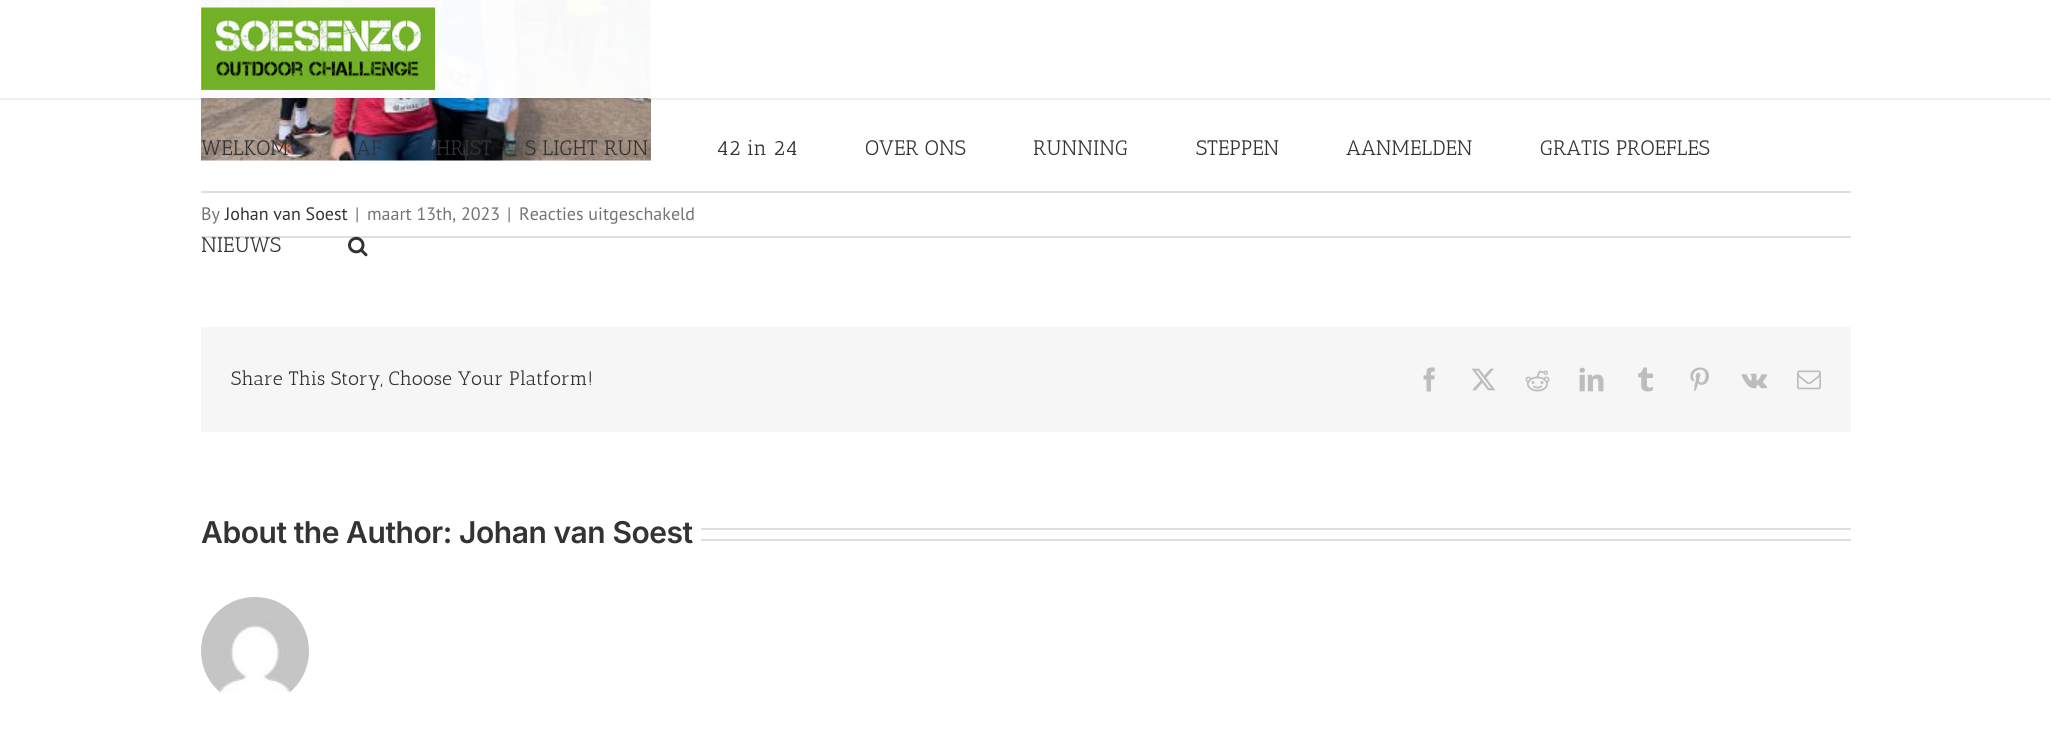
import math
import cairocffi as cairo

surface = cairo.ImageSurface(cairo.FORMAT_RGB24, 2051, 734)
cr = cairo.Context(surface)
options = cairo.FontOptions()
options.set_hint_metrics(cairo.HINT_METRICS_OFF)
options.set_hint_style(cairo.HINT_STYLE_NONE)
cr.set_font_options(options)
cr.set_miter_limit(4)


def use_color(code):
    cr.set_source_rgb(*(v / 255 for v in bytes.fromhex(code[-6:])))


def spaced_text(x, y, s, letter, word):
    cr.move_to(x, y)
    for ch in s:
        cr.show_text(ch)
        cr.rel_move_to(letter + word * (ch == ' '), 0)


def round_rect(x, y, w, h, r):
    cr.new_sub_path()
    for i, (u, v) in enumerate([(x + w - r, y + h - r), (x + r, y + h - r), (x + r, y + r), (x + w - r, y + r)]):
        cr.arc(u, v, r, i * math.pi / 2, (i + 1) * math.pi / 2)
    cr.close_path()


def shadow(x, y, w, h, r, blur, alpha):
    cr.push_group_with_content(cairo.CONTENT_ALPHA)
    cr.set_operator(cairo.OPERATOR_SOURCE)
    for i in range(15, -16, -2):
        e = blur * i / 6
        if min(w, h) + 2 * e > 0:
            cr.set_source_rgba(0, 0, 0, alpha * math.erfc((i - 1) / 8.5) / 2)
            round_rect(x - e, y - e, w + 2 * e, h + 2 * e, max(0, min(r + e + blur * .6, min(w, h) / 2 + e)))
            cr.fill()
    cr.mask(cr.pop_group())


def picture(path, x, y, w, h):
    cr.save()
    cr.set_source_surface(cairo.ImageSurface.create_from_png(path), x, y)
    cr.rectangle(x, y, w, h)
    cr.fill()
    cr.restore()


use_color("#ffffff")
cr.paint()
picture("img3.png", 201, 0, 450, 161)
cr.save()
cr.set_fill_rule(cairo.FILL_RULE_EVEN_ODD)
cr.new_path()
cr.move_to(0, 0)
cr.line_to(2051, 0)
cr.line_to(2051, 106)
cr.line_to(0, 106)
cr.close_path()
cr.move_to(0, 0)
cr.line_to(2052, 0)
cr.line_to(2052, 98)
cr.line_to(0, 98)
cr.close_path()
cr.clip()
use_color("#000000")
shadow(0, 2, 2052, 97, 0, 2, 0.12)
cr.restore()
cr.set_source_rgba(1, 1, 1, 0.97)
cr.rectangle(0, 0, 2051, 98)
cr.fill()
picture("img1.png", 201, 7, 234, 83)
cr.select_font_face("Antic Slab")
cr.set_font_size(21)
use_color("#333333")
cr.move_to(201, 155)
cr.show_text("WELKOM")
cr.move_to(356, 155)
cr.show_text("AF")
cr.move_to(436, 155)
cr.show_text("HRIST")
cr.move_to(525, 155)
cr.show_text("S LIGHT RUN")
cr.move_to(716, 155)
cr.show_text("42 in 24")
cr.save()
cr.rectangle(866, 98, 168, 97)
cr.clip()
cr.move_to(865, 155)
cr.show_text("OVER ONS")
cr.restore()
cr.move_to(1033, 155)
cr.show_text("RUNNING")
cr.move_to(1196, 155)
cr.show_text("STEPPEN")
cr.move_to(1346, 155)
cr.show_text("AANMELDEN")
cr.move_to(1540, 155)
cr.show_text("GRATIS PROEFLES")
use_color("#e0dede")
cr.rectangle(201, 236, 1650, 2)
cr.fill()
use_color("#333333")
cr.move_to(201, 252)
cr.show_text("NIEUWS")
picture("img2.png", 348, 236, 20, 21)
use_color("#e0dede")
cr.rectangle(201, 191, 1650, 2)
cr.fill()
cr.select_font_face("PT Sans")
cr.set_font_size(18)
use_color("#747474")
cr.move_to(201, 220)
cr.show_text("By")
use_color("#333333")
cr.move_to(225, 220)
cr.show_text("Johan van Soest")
use_color("#747474")
cr.move_to(355, 220)
cr.show_text("|")
cr.move_to(367, 220)
cr.show_text("maart 13th, 2023")
cr.move_to(507, 220)
cr.show_text("|")
cr.move_to(519, 220)
cr.show_text("Reacties uitgeschakeld")
use_color("#f6f6f6")
cr.rectangle(201, 327, 1650, 105)
cr.fill()
cr.select_font_face("Antic Slab")
cr.set_font_size(19.5)
use_color("#333333")
cr.move_to(231, 385)
cr.show_text("Share This Story, Choose Your Platform!")
picture("img4.png", 1423, 367, 12, 25)
picture("img5.png", 1471, 368, 25, 23)
picture("img6.png", 1525, 370, 25, 22)
picture("img7.png", 1579, 367, 25, 25)
picture("img8.png", 1638, 367, 15, 25)
picture("img9.png", 1690, 367, 19, 25)
picture("img10.png", 1741, 373, 27, 16)
picture("img11.png", 1797, 370, 24, 20)
cr.select_font_face("Inter SemiBold")
cr.set_font_size(30)
spaced_text(201, 543, "About the Author: Johan van Soest", -0.45, 0)
use_color("#e0dede")
cr.rectangle(701, 528, 1150, 2)
cr.fill()
cr.rectangle(701, 539, 1150, 2)
cr.fill()
picture("img12.png", 201, 597, 108, 96)
surface.write_to_png("result.png")
